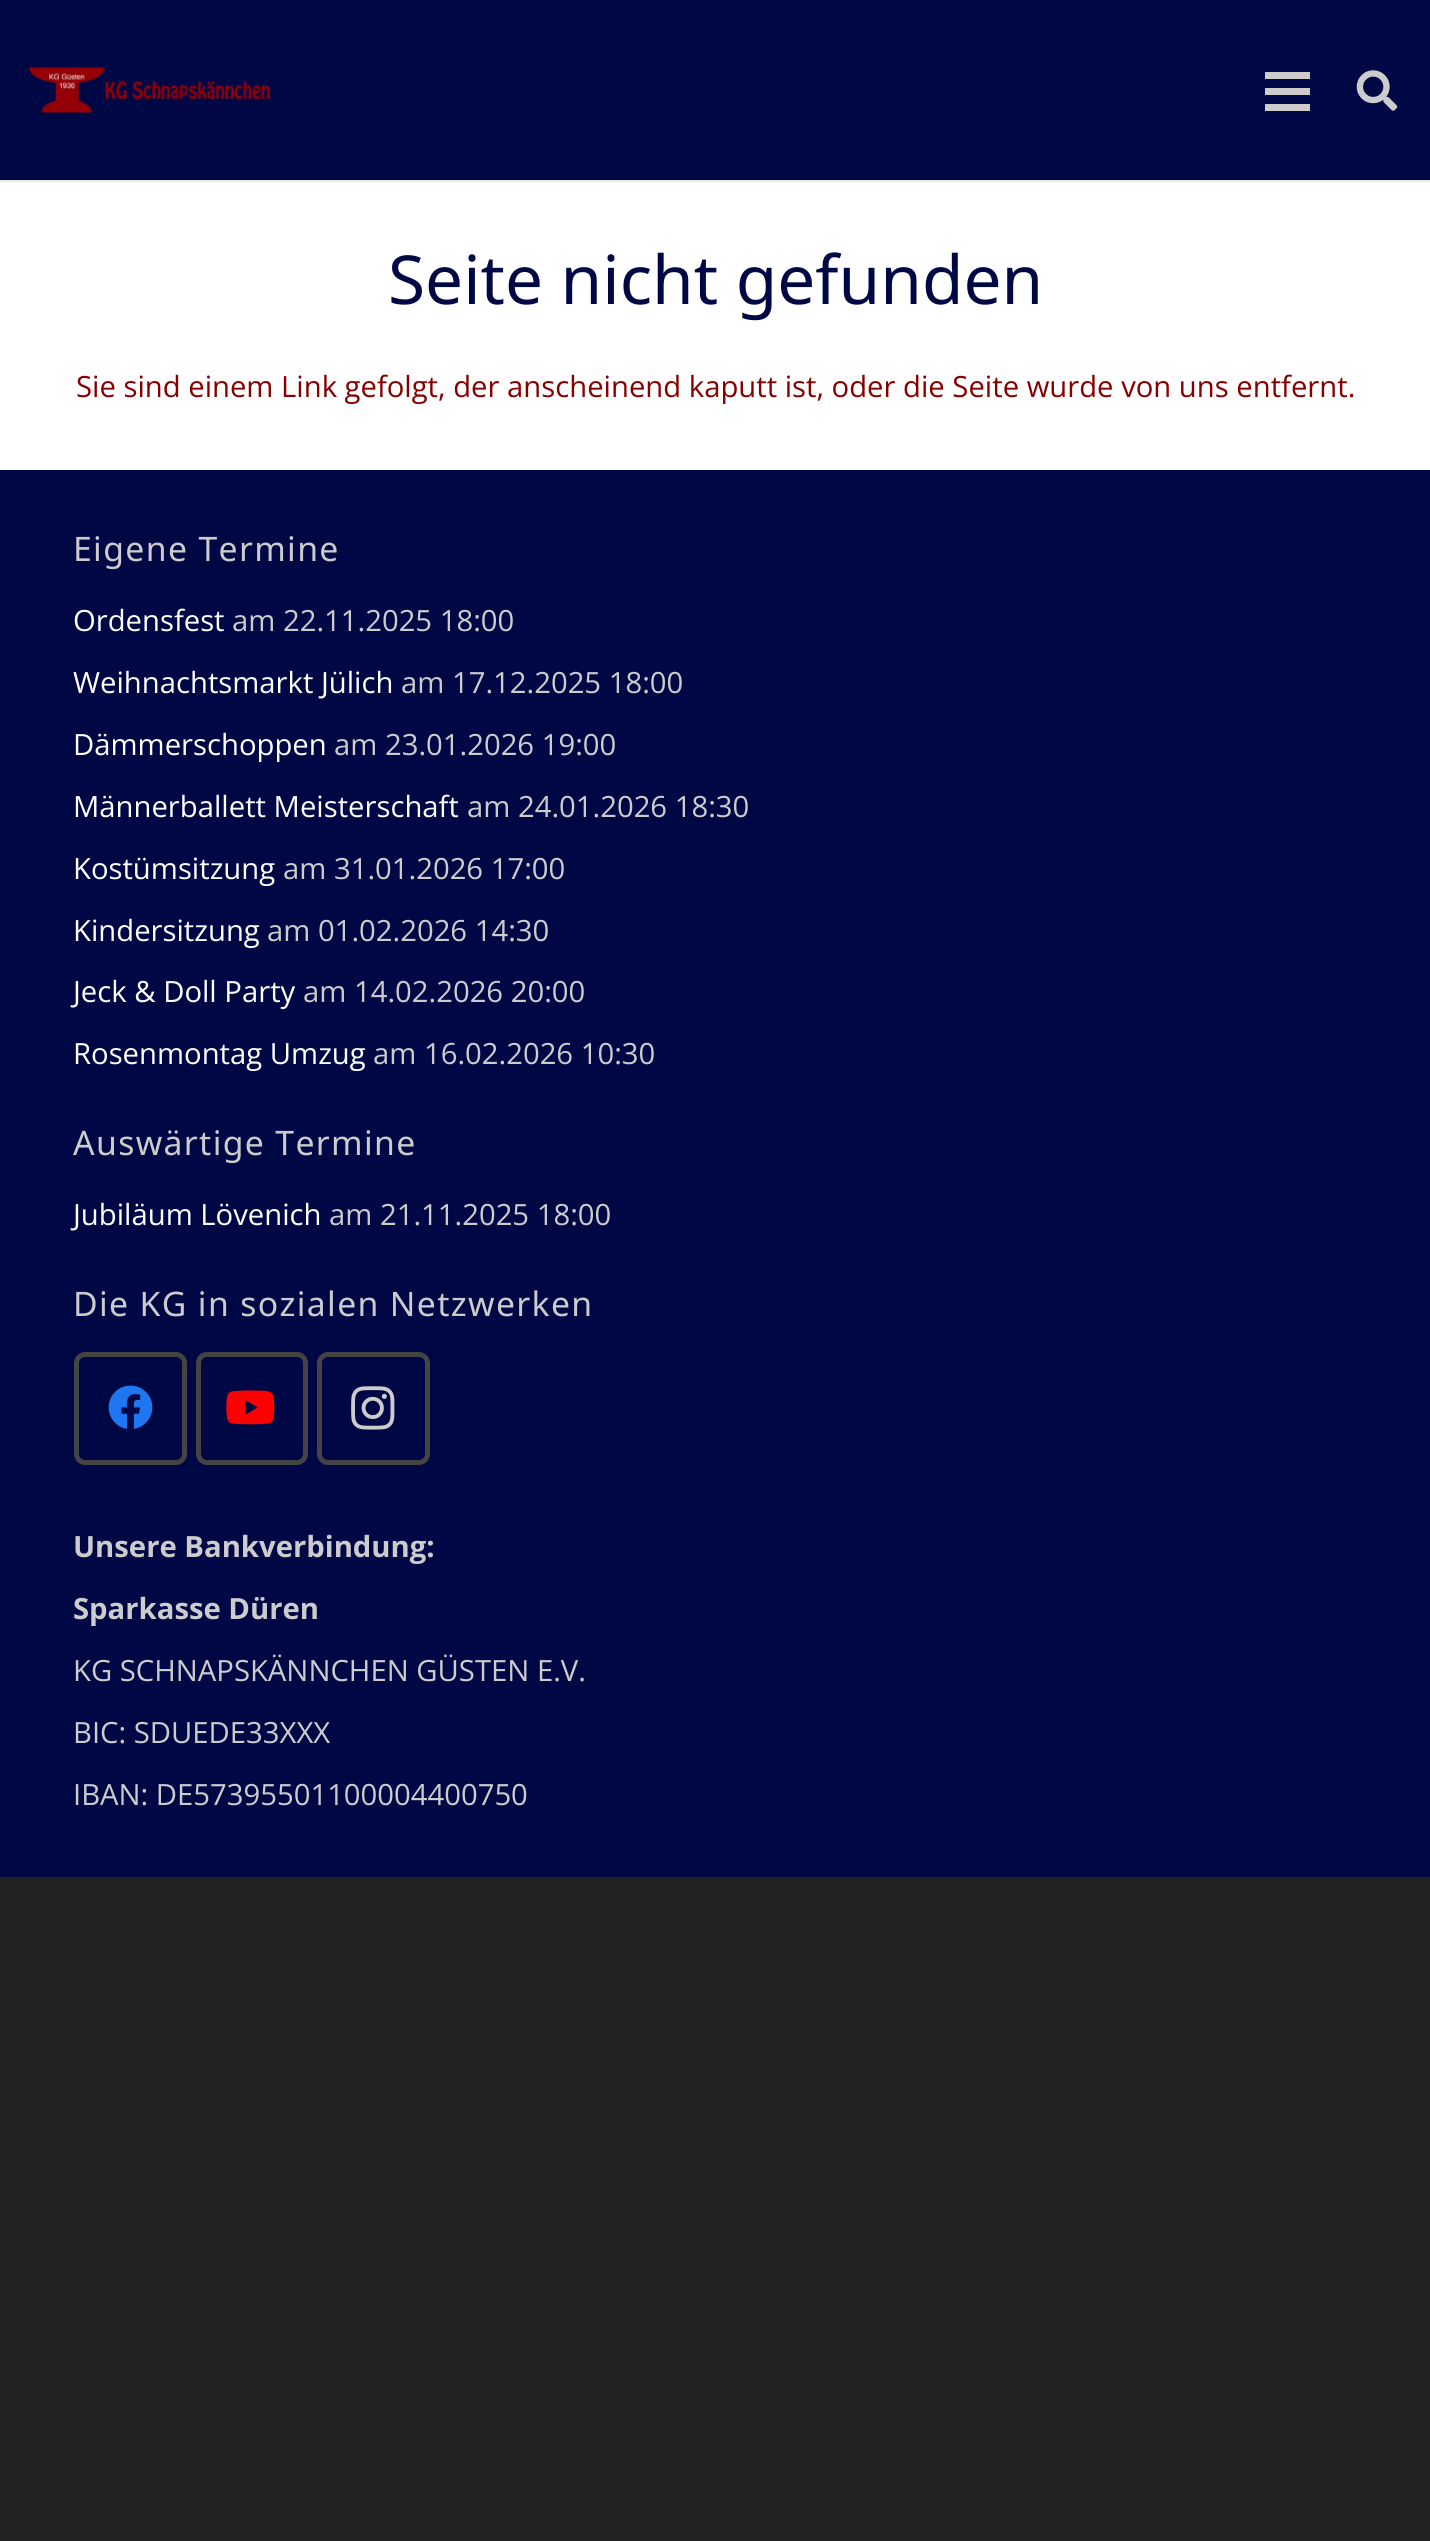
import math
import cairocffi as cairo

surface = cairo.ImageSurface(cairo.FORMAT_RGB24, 1430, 2541)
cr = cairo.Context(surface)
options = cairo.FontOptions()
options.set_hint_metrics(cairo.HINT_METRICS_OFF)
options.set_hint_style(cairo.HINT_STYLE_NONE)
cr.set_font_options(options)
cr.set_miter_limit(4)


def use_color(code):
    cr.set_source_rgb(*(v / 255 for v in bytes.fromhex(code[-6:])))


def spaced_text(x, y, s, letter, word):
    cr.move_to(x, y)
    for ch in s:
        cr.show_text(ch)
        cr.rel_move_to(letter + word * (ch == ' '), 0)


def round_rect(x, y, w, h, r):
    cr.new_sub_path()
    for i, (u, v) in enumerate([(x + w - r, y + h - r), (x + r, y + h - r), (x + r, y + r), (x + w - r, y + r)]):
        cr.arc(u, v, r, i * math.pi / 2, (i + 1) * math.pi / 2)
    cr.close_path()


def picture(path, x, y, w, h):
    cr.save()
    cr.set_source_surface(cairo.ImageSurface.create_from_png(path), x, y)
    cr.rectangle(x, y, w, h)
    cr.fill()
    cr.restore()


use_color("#222222")
cr.paint()
use_color("#ffffff")
cr.rectangle(0, 182, 1430, 288)
cr.fill()
use_color("#ebebeb")
cr.rectangle(0, 180, 1430, 2)
cr.fill()
use_color("#000745")
cr.rectangle(0, 0, 1430, 180)
cr.fill()
picture("img1.png", 29, 67, 242, 46)
use_color("#cccccc")
cr.rectangle(1265, 88, 45, 7)
cr.fill()
cr.rectangle(1265, 72, 45, 7)
cr.fill()
cr.rectangle(1265, 104, 45, 7)
cr.fill()
picture("img2.png", 1356, 70, 42, 41)
cr.select_font_face("Noto Sans")
cr.set_font_size(67.5)
use_color("#000745")
cr.move_to(388, 304)
cr.show_text("Seite nicht gefunden")
cr.select_font_face("Open Sans")
cr.set_font_size(29.25)
use_color("#870000")
cr.move_to(76, 397)
cr.show_text("Sie sind einem Link gefolgt, der anscheinend kaputt ist, oder die Seite wurde von uns entfernt.")
use_color("#000745")
cr.rectangle(0, 470, 1430, 1407)
cr.fill()
cr.select_font_face("Noto Sans")
cr.set_font_size(33.75)
use_color("#cccccc")
spaced_text(73, 561, "Eigene Termine", 1.35, 0)
cr.select_font_face("Open Sans")
cr.set_font_size(29.25)
use_color("#ffffff")
cr.move_to(73, 631)
cr.show_text("Ordensfest")
use_color("#cccccc")
cr.move_to(232, 631)
cr.show_text("am 22.11.2025 18:00")
use_color("#ffffff")
cr.move_to(73, 693)
cr.show_text("Weihnachtsmarkt Jülich")
use_color("#cccccc")
cr.move_to(401, 693)
cr.show_text("am 17.12.2025 18:00")
use_color("#ffffff")
cr.move_to(73, 755)
cr.show_text("Dämmerschoppen")
use_color("#cccccc")
cr.move_to(334, 755)
cr.show_text("am 23.01.2026 19:00")
use_color("#ffffff")
cr.move_to(73, 817)
cr.show_text("Männerballett Meisterschaft")
use_color("#cccccc")
cr.move_to(467, 817)
cr.show_text("am 24.01.2026 18:30")
use_color("#ffffff")
cr.move_to(73, 879)
cr.show_text("Kostümsitzung")
use_color("#cccccc")
cr.move_to(283, 879)
cr.show_text("am 31.01.2026 17:00")
use_color("#ffffff")
cr.move_to(73, 941)
cr.show_text("Kindersitzung")
use_color("#cccccc")
cr.move_to(267, 941)
cr.show_text("am 01.02.2026 14:30")
use_color("#ffffff")
cr.move_to(73, 1002)
cr.show_text("Jeck & Doll Party")
use_color("#cccccc")
cr.move_to(303, 1002)
cr.show_text("am 14.02.2026 20:00")
use_color("#ffffff")
cr.move_to(73, 1064)
cr.show_text("Rosenmontag Umzug")
use_color("#cccccc")
cr.move_to(373, 1064)
cr.show_text("am 16.02.2026 10:30")
cr.select_font_face("Noto Sans")
cr.set_font_size(33.75)
spaced_text(73, 1155, "Auswärtige Termine", 1.35, 0)
cr.select_font_face("Open Sans")
cr.set_font_size(29.25)
use_color("#ffffff")
cr.move_to(73, 1225)
cr.show_text("Jubiläum Lövenich")
use_color("#cccccc")
cr.move_to(329, 1225)
cr.show_text("am 21.11.2025 18:00")
cr.select_font_face("Noto Sans")
cr.set_font_size(33.75)
spaced_text(73, 1316, "Die KG in sozialen Netzwerken", 1.35, 0)
round_rect(76.5, 1354.5, 108, 108, 8.5)
use_color("#444444")
cr.set_line_width(5)
cr.stroke()
picture("img3.png", 108, 1385, 45, 44)
round_rect(198.5, 1354.5, 107, 108, 8.5)
cr.stroke()
picture("img4.png", 226, 1390, 49, 35)
round_rect(319.5, 1354.5, 108, 108, 8.5)
cr.stroke()
picture("img5.png", 351, 1386, 44, 44)
cr.select_font_face("Open Sans", cairo.FONT_SLANT_NORMAL, cairo.FONT_WEIGHT_BOLD)
cr.set_font_size(29.25)
use_color("#cccccc")
cr.move_to(73, 1557)
cr.show_text("Unsere Bankverbindung:")
cr.move_to(73, 1619)
cr.show_text("Sparkasse Düren")
cr.select_font_face("Open Sans")
cr.move_to(73, 1681)
cr.show_text("KG SCHNAPSKÄNNCHEN GÜSTEN E.V.")
cr.move_to(73, 1743)
cr.show_text("BIC: SDUEDE33XXX")
cr.move_to(73, 1805)
cr.show_text("IBAN: DE57395501100004400750")
surface.write_to_png("result.png")
